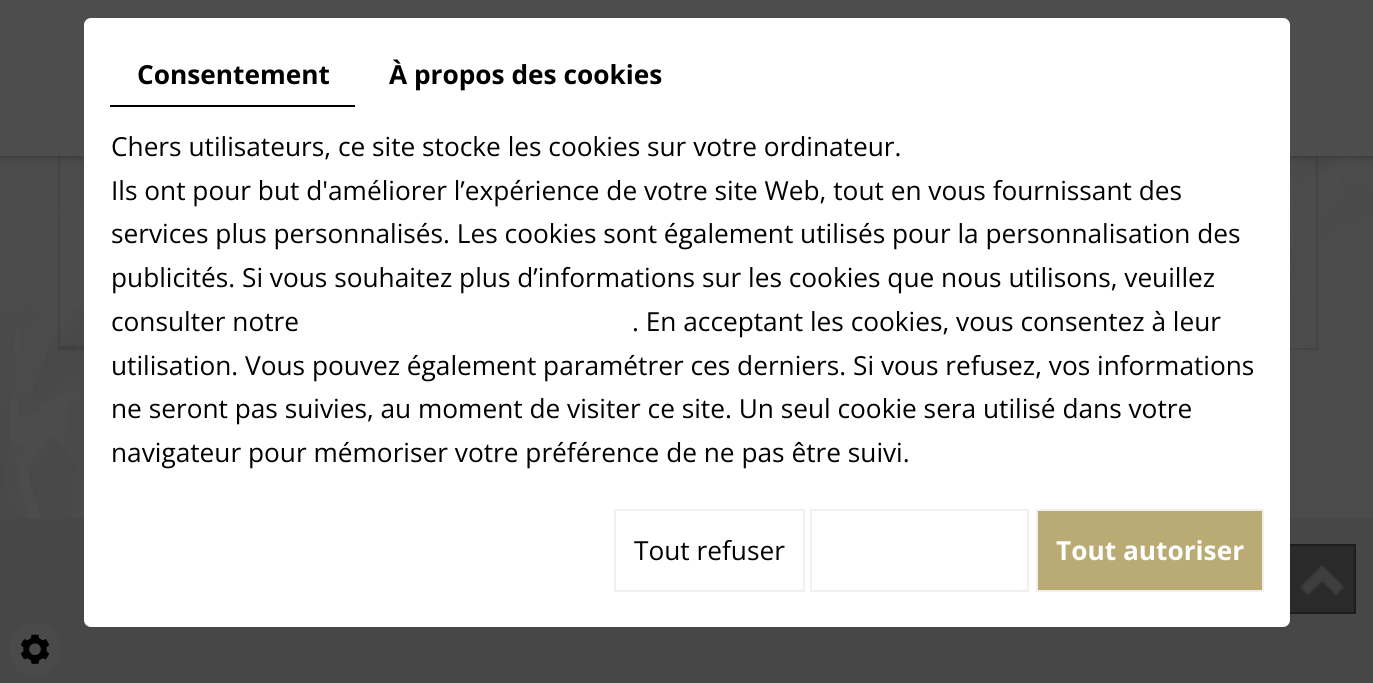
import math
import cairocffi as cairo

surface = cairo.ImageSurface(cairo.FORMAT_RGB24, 1373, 683)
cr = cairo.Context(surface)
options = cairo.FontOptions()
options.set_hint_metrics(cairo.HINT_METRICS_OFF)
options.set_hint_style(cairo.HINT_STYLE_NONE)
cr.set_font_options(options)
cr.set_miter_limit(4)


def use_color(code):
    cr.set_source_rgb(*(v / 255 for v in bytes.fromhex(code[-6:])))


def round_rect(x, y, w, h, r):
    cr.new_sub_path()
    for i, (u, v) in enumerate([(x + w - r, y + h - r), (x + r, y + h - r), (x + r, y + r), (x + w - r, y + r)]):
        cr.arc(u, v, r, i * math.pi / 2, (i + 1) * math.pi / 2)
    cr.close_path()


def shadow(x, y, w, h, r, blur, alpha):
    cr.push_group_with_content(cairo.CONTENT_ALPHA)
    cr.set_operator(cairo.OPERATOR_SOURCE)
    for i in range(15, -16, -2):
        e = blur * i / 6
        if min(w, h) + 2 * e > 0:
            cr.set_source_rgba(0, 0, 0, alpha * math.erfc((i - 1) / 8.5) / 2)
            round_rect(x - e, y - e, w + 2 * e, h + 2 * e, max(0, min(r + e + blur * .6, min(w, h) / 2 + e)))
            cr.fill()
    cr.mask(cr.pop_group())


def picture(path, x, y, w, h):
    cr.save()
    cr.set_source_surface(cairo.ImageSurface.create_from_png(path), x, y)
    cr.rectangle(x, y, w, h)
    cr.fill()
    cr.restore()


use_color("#4d4d4d")
cr.paint()
picture("img1.png", 0, 156, 1373, 362)
cr.rectangle(59, -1, 1258, 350)
cr.set_source_rgba(0, 0, 0, 0.1)
cr.stroke()
cr.new_path()
cr.move_to(373, 348)
cr.line_to(60, 348)
cr.line_to(60, 346)
cr.line_to(371, 346)
cr.close_path()
cr.fill()
use_color("#000000")
shadow(0, 0, 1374, 156, 0, 4.5, 0.35)
use_color("#4d4d4d")
cr.rectangle(0, 0, 1373, 156)
cr.fill()
use_color("#474747")
cr.rectangle(0, 518, 1373, 165)
cr.fill()
use_color("#2b2a2a")
cr.rectangle(1290, 546, 64, 66)
cr.fill()
picture("img2.png", 1299, 564, 46, 32)
cr.rectangle(1287, 545, 68, 68)
use_color("#1d1d1d")
cr.stroke()
use_color("#ffffff")
round_rect(84, 18, 1206, 609, 7)
cr.fill()
use_color("#000000")
cr.rectangle(110, 105, 245, 2)
cr.fill()
cr.select_font_face("Open Sans", cairo.FONT_SLANT_NORMAL, cairo.FONT_WEIGHT_BOLD)
cr.set_font_size(26.25)
cr.move_to(137, 84)
cr.show_text("Consentement")
cr.move_to(389, 84)
cr.show_text("À propos des cookies")
cr.select_font_face("Open Sans")
cr.move_to(111, 156)
cr.show_text("Chers utilisateurs, ce site stocke les cookies sur votre ordinateur.")
cr.move_to(111, 200)
cr.show_text("Ils ont pour but d'améliorer l’expérience de votre site Web, tout en vous fournissant des")
cr.move_to(111, 243)
cr.show_text("services plus personnalisés. Les cookies sont également utilisés pour la personnalisation des")
cr.move_to(111, 287)
cr.show_text("publicités. Si vous souhaitez plus d’informations sur les cookies que nous utilisons, veuillez")
cr.move_to(111, 331)
cr.show_text("consulter notre")
cr.move_to(632, 331)
cr.show_text(". En acceptant les cookies, vous consentez à leur")
cr.move_to(111, 375)
cr.show_text("utilisation. Vous pouvez également paramétrer ces derniers. Si vous refusez, vos informations")
cr.move_to(111, 418)
cr.show_text("ne seront pas suivies, au moment de visiter ce site. Un seul cookie sera utilisé dans votre")
cr.move_to(111, 462)
cr.show_text("navigateur pour mémoriser votre préférence de ne pas être suivi.")
cr.rectangle(615, 510, 189, 81)
use_color("#f0f0f0")
cr.stroke()
use_color("#000000")
cr.move_to(634, 560)
cr.show_text("Tout refuser")
cr.rectangle(811, 510, 217, 81)
use_color("#f0f0f0")
cr.stroke()
use_color("#baaa73")
cr.rectangle(1037, 510, 226, 81)
cr.fill_preserve()
use_color("#f0f0f0")
cr.stroke()
cr.select_font_face("Open Sans", cairo.FONT_SLANT_NORMAL, cairo.FONT_WEIGHT_BOLD)
use_color("#ffffff")
cr.move_to(1056, 560)
cr.show_text("Tout autoriser")
use_color("#4a4a4a")
round_rect(9, 623, 52, 53, 26)
cr.fill()
picture("img3.png", 20, 634, 30, 30)
surface.write_to_png("result.png")
